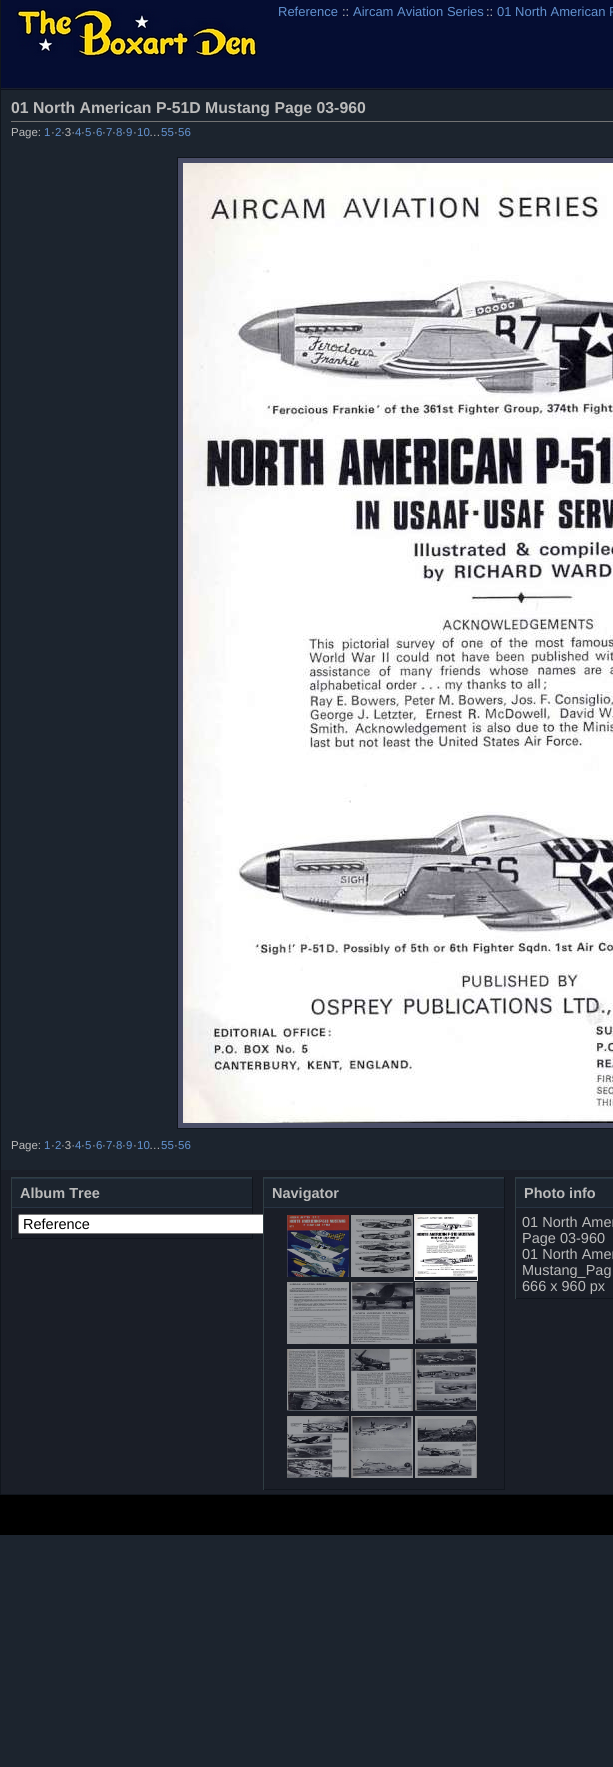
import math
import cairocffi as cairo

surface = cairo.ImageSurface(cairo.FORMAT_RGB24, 613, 1767)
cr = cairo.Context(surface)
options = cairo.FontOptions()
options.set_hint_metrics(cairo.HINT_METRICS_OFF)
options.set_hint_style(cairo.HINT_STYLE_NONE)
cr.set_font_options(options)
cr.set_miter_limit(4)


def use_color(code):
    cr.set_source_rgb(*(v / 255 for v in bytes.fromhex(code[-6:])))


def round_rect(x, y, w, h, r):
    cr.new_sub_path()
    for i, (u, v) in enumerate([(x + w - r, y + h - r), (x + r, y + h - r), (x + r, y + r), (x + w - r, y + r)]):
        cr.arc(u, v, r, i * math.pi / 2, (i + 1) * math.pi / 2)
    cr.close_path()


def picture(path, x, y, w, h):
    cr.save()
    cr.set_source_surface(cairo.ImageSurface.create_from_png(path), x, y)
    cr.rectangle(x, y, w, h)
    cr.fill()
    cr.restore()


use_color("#1c242e")
cr.paint()
picture("img1.png", 1, 0, 612, 90)
picture("img2.png", 17, 8, 240, 50)
cr.select_font_face("Liberation Sans")
cr.set_font_size(13)
use_color("#6392cf")
cr.move_to(278, 16)
cr.show_text("Reference")
use_color("#bbbbbb")
cr.move_to(342, 16)
cr.show_text("::")
use_color("#6392cf")
cr.move_to(353, 16)
cr.show_text("Aircam Aviation Series")
use_color("#bbbbbb")
cr.move_to(486, 16)
cr.show_text("::")
use_color("#6392cf")
cr.move_to(497, 16)
cr.show_text("01 North American P")
use_color("#10151c")
cr.rectangle(0, 0, 1, 1170)
cr.fill()
use_color("#737373")
cr.rectangle(11, 121, 602, 1)
cr.fill()
cr.select_font_face("Liberation Sans", cairo.FONT_SLANT_NORMAL, cairo.FONT_WEIGHT_BOLD)
cr.set_font_size(15.8)
use_color("#bbbbbb")
cr.move_to(11, 113)
cr.show_text("01 North American P-51D Mustang Page 03-960")
cr.select_font_face("Liberation Sans")
cr.set_font_size(11.5)
cr.move_to(11, 136)
cr.show_text("Page:")
use_color("#6392cf")
cr.move_to(44, 136)
cr.show_text("1")
use_color("#bbbbbb")
cr.move_to(51, 136)
cr.show_text("·")
use_color("#6392cf")
cr.move_to(55, 136)
cr.show_text("2")
use_color("#bbbbbb")
cr.move_to(61, 136)
cr.show_text("·3·")
use_color("#6392cf")
cr.move_to(75, 136)
cr.show_text("4")
use_color("#bbbbbb")
cr.move_to(81, 136)
cr.show_text("·")
use_color("#6392cf")
cr.move_to(85, 136)
cr.show_text("5")
use_color("#bbbbbb")
cr.move_to(92, 136)
cr.show_text("·")
use_color("#6392cf")
cr.move_to(96, 136)
cr.show_text("6")
use_color("#bbbbbb")
cr.move_to(102, 136)
cr.show_text("·")
use_color("#6392cf")
cr.move_to(106, 136)
cr.show_text("7")
use_color("#bbbbbb")
cr.move_to(112, 136)
cr.show_text("·")
use_color("#6392cf")
cr.move_to(116, 136)
cr.show_text("8")
use_color("#bbbbbb")
cr.move_to(122, 136)
cr.show_text("·")
use_color("#6392cf")
cr.move_to(126, 136)
cr.show_text("9")
use_color("#bbbbbb")
cr.move_to(133, 136)
cr.show_text("·")
use_color("#6392cf")
cr.move_to(137, 136)
cr.show_text("10")
cr.move_to(161, 136)
cr.show_text("55")
use_color("#bbbbbb")
cr.move_to(174, 136)
cr.show_text("·")
use_color("#6392cf")
cr.move_to(178, 136)
cr.show_text("56")
use_color("#bbbbbb")
cr.move_to(149, 136)
cr.show_text("…")
use_color("#4a4e67")
cr.rectangle(177.5, 157.5, 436, 971)
cr.fill_preserve()
use_color("#10151c")
cr.set_line_width(1)
cr.stroke()
picture("img3.png", 183, 163, 430, 960)
use_color("#bbbbbb")
cr.move_to(11, 1149)
cr.show_text("Page:")
use_color("#6392cf")
cr.move_to(44, 1149)
cr.show_text("1")
use_color("#bbbbbb")
cr.move_to(51, 1149)
cr.show_text("·")
use_color("#6392cf")
cr.move_to(55, 1149)
cr.show_text("2")
use_color("#bbbbbb")
cr.move_to(61, 1149)
cr.show_text("·3·")
use_color("#6392cf")
cr.move_to(75, 1149)
cr.show_text("4")
use_color("#bbbbbb")
cr.move_to(81, 1149)
cr.show_text("·")
use_color("#6392cf")
cr.move_to(85, 1149)
cr.show_text("5")
use_color("#bbbbbb")
cr.move_to(92, 1149)
cr.show_text("·")
use_color("#6392cf")
cr.move_to(96, 1149)
cr.show_text("6")
use_color("#bbbbbb")
cr.move_to(102, 1149)
cr.show_text("·")
use_color("#6392cf")
cr.move_to(106, 1149)
cr.show_text("7")
use_color("#bbbbbb")
cr.move_to(112, 1149)
cr.show_text("·")
use_color("#6392cf")
cr.move_to(116, 1149)
cr.show_text("8")
use_color("#bbbbbb")
cr.move_to(122, 1149)
cr.show_text("·")
use_color("#6392cf")
cr.move_to(126, 1149)
cr.show_text("9")
use_color("#bbbbbb")
cr.move_to(133, 1149)
cr.show_text("·")
use_color("#6392cf")
cr.move_to(137, 1149)
cr.show_text("10")
cr.move_to(161, 1149)
cr.show_text("55")
use_color("#bbbbbb")
cr.move_to(174, 1149)
cr.show_text("·")
use_color("#6392cf")
cr.move_to(178, 1149)
cr.show_text("56")
use_color("#bbbbbb")
cr.move_to(149, 1149)
cr.show_text("…")
use_color("#1a1e27")
cr.rectangle(1, 1170, 612, 324)
cr.fill()
use_color("#10151c")
cr.rectangle(0, 1494, 613, 1)
cr.fill()
cr.rectangle(0, 1170, 1, 325)
cr.fill()
use_color("#303e43")
cr.rectangle(11, 1177, 242, 1)
cr.fill()
use_color("#10151c")
cr.rectangle(252, 1177, 1, 62)
cr.fill()
cr.rectangle(11, 1238, 242, 1)
cr.fill()
use_color("#303e43")
cr.rectangle(11, 1177, 1, 62)
cr.fill()
use_color("#1c242e")
cr.rectangle(12, 1179, 240, 28)
cr.fill()
use_color("#273444")
cr.rectangle(12, 1178, 240, 1)
cr.fill()
cr.rectangle(12, 1207, 240, 1)
cr.fill()
cr.select_font_face("Liberation Sans", cairo.FONT_SLANT_NORMAL, cairo.FONT_WEIGHT_BOLD)
cr.set_font_size(14.5)
use_color("#bbbbbb")
cr.move_to(20, 1198)
cr.show_text("Album Tree")
use_color("#ffffff")
round_rect(18.5, 1214.5, 485, 19, 1.5)
cr.fill_preserve()
use_color("#767676")
cr.stroke()
cr.select_font_face("Liberation Sans")
use_color("#000000")
cr.move_to(23, 1229)
cr.show_text("Reference")
use_color("#1a1e27")
cr.rectangle(264, 1214, 240, 20)
cr.fill()
use_color("#303e43")
cr.rectangle(263, 1177, 242, 1)
cr.fill()
use_color("#10151c")
cr.rectangle(504, 1177, 1, 313)
cr.fill()
cr.rectangle(263, 1489, 242, 1)
cr.fill()
use_color("#303e43")
cr.rectangle(263, 1177, 1, 313)
cr.fill()
use_color("#1c242e")
cr.rectangle(264, 1179, 240, 28)
cr.fill()
use_color("#273444")
cr.rectangle(264, 1178, 240, 1)
cr.fill()
cr.rectangle(264, 1207, 240, 1)
cr.fill()
cr.select_font_face("Liberation Sans", cairo.FONT_SLANT_NORMAL, cairo.FONT_WEIGHT_BOLD)
use_color("#bbbbbb")
cr.move_to(272, 1198)
cr.show_text("Navigator")
picture("img4.png", 287, 1215, 62, 62)
picture("img5.png", 351, 1215, 62, 62)
cr.rectangle(414.5, 1214.5, 63, 66)
use_color("#dddddd")
cr.stroke()
picture("img6.png", 415, 1215, 62, 62)
picture("img7.png", 287, 1282, 62, 62)
picture("img8.png", 351, 1282, 62, 62)
picture("img9.png", 415, 1282, 62, 62)
picture("img10.png", 287, 1349, 62, 62)
picture("img11.png", 351, 1349, 62, 62)
picture("img12.png", 415, 1349, 62, 62)
picture("img13.png", 287, 1416, 62, 62)
picture("img14.png", 351, 1416, 62, 62)
picture("img15.png", 415, 1416, 62, 62)
use_color("#303e43")
cr.rectangle(515, 1177, 98, 1)
cr.fill()
use_color("#10151c")
cr.rectangle(515, 1298, 98, 1)
cr.fill()
use_color("#303e43")
cr.rectangle(515, 1177, 1, 122)
cr.fill()
use_color("#1c242e")
cr.rectangle(516, 1179, 97, 28)
cr.fill()
use_color("#273444")
cr.rectangle(516, 1178, 97, 1)
cr.fill()
cr.rectangle(516, 1207, 97, 1)
cr.fill()
use_color("#bbbbbb")
cr.move_to(524, 1198)
cr.show_text("Photo info")
cr.select_font_face("Liberation Sans")
cr.move_to(522, 1227)
cr.show_text("01 North Amer")
cr.move_to(522, 1243)
cr.show_text("Page 03-960")
cr.move_to(522, 1259)
cr.show_text("01 North Amer")
cr.move_to(522, 1275)
cr.show_text("Mustang_Pag")
cr.move_to(522, 1291)
cr.show_text("666 x 960 px")
use_color("#000000")
cr.rectangle(0, 1495, 613, 40)
cr.fill()
surface.write_to_png("result.png")
